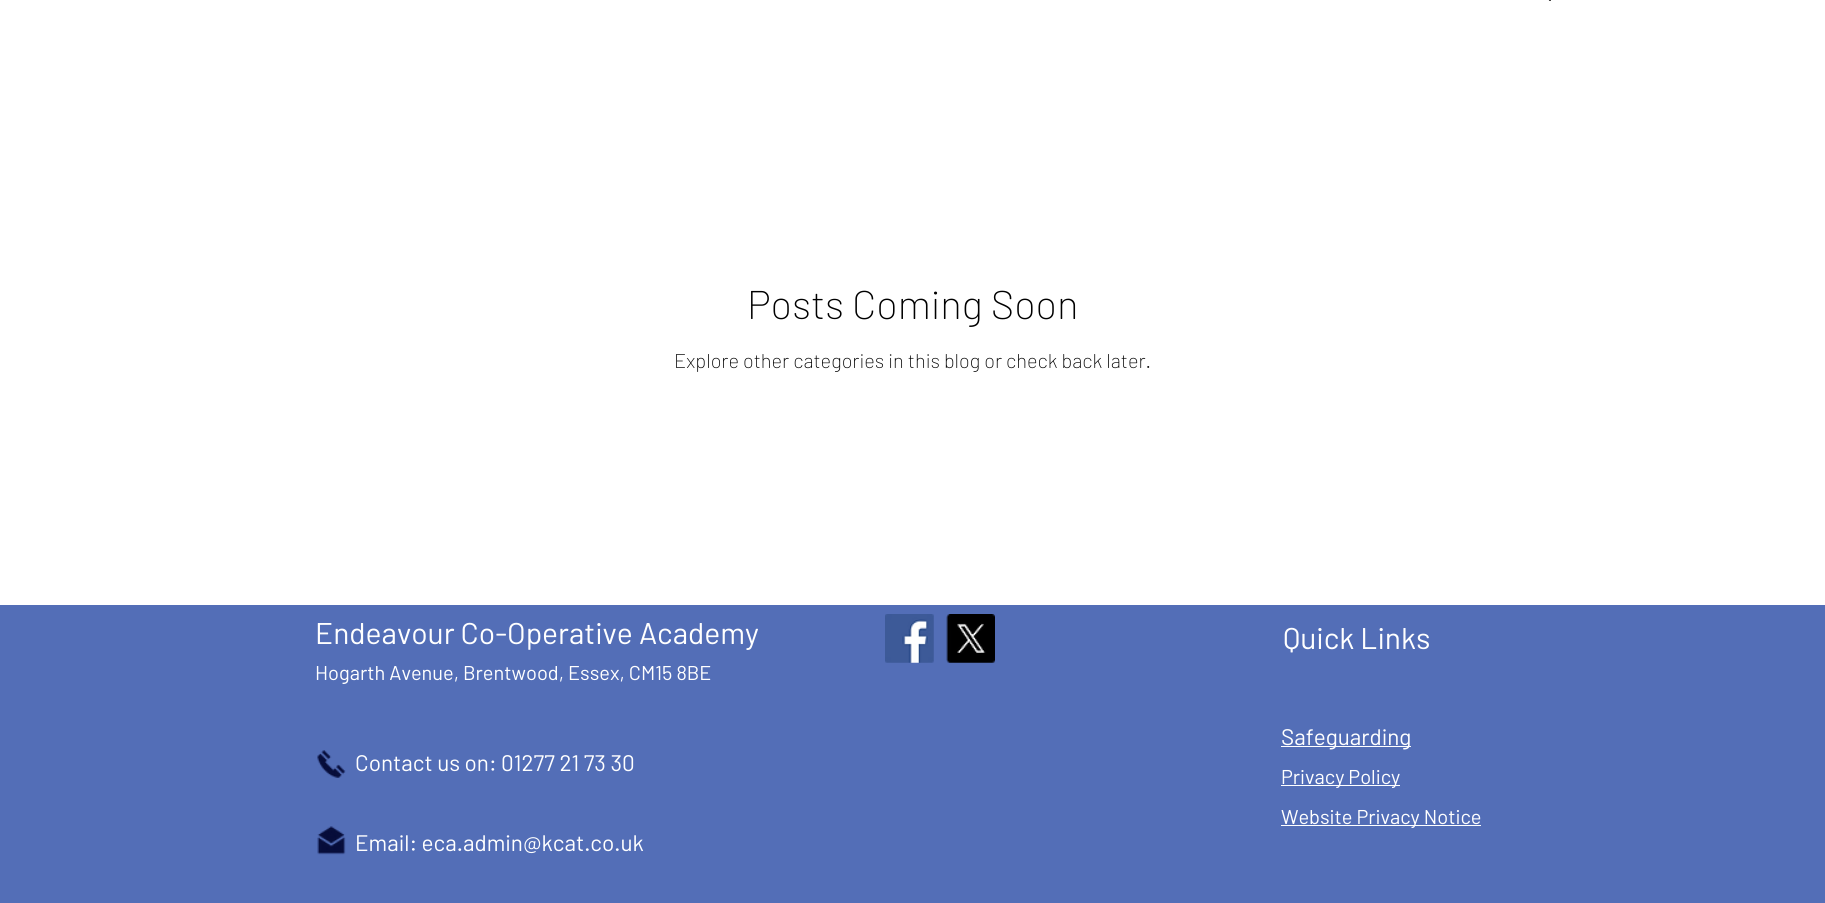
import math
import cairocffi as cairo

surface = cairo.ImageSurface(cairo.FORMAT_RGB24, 1825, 903)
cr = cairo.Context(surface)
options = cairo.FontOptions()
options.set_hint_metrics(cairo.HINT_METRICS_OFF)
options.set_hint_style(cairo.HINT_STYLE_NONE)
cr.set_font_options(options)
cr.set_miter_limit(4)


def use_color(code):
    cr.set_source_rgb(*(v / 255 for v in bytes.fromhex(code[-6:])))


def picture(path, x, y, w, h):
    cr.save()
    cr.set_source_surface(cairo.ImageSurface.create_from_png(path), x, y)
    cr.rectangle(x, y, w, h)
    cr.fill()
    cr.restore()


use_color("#ffffff")
cr.paint()
picture("img1.png", 1548, 0, 3, 1)
cr.select_font_face("Barlow ExtraLight")
cr.set_font_size(40)
use_color("#000000")
cr.move_to(747, 319)
cr.show_text("Posts Coming Soon")
cr.set_font_size(20)
cr.move_to(674, 368)
cr.show_text("Explore other categories in this blog or check back later.")
use_color("#536eb7")
cr.rectangle(0, 605, 1825, 298)
cr.fill()
cr.select_font_face("Barlow")
cr.set_font_size(30)
use_color("#ffffff")
cr.move_to(315, 644)
cr.show_text("Endeavour Co-Operative Academy")
cr.set_font_size(20)
cr.move_to(315, 680)
cr.show_text("Hogarth Avenue, Brentwood, Essex, CM15 8BE")
picture("img2.png", 885, 614, 49, 49)
picture("img3.png", 946, 614, 49, 49)
cr.set_font_size(30)
cr.move_to(1283, 649)
cr.show_text("Quick Links")
picture("img4.png", 317, 750, 29, 28)
cr.set_font_size(22.5)
cr.move_to(355, 771)
cr.show_text("Contact us on: 01277 21 73 30")
cr.rectangle(1281, 746, 130, 1)
cr.fill()
cr.move_to(1281, 745)
cr.show_text("Safeguarding")
cr.rectangle(1281, 785, 119, 1)
cr.fill()
cr.set_font_size(20)
cr.move_to(1281, 784)
cr.show_text("Privacy Policy")
cr.rectangle(1281, 825, 200, 1)
cr.fill()
cr.move_to(1281, 824)
cr.show_text("Website Privacy Notice")
picture("img5.png", 317, 826, 29, 29)
cr.set_font_size(22.5)
cr.move_to(355, 851)
cr.show_text("Email: eca.admin@kcat.co.uk")
surface.write_to_png("result.png")
